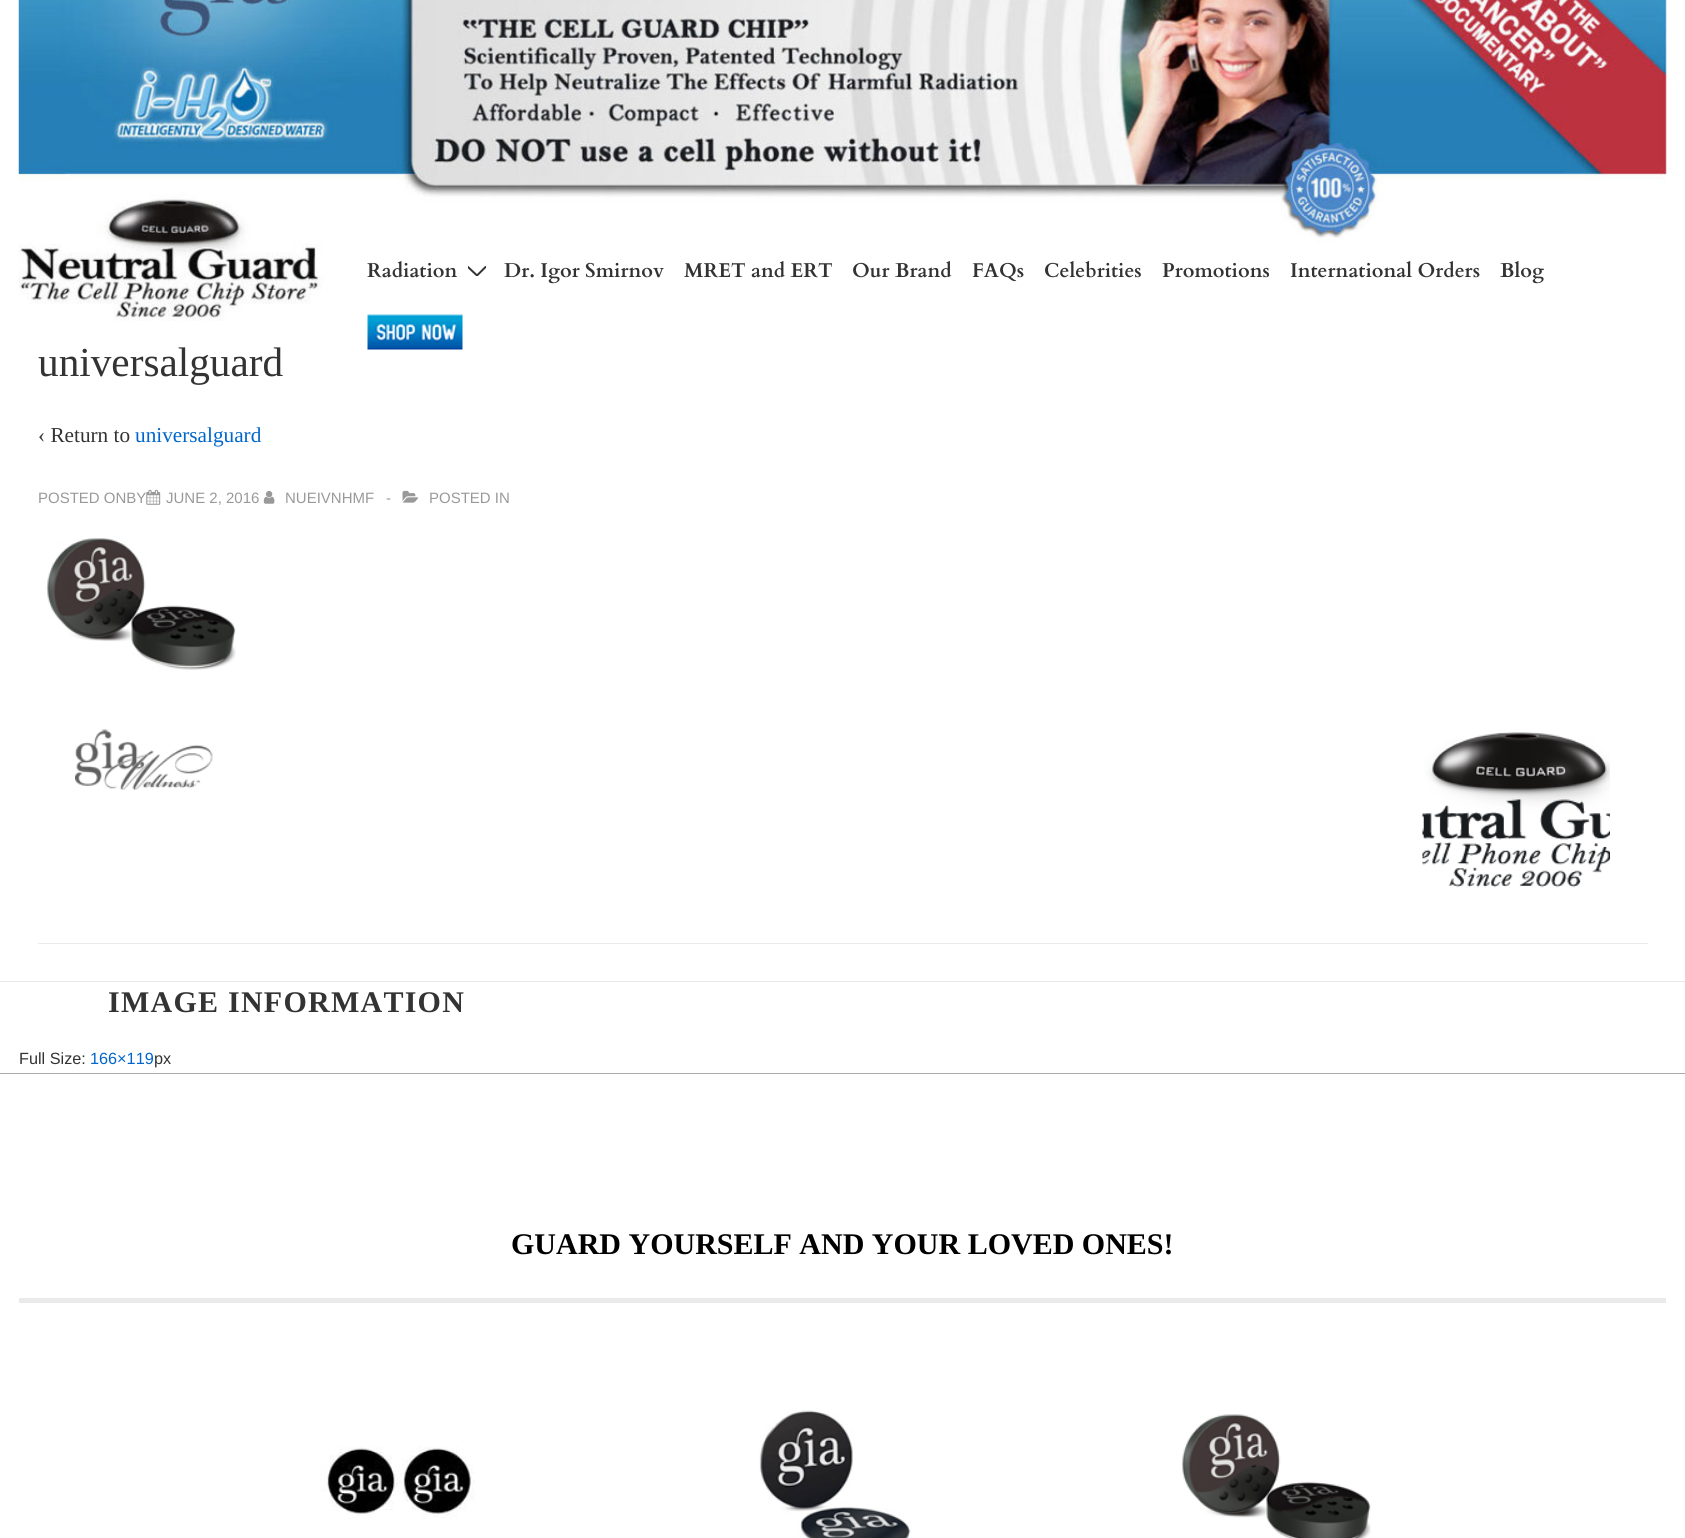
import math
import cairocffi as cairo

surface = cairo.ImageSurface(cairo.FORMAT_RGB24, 1685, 1538)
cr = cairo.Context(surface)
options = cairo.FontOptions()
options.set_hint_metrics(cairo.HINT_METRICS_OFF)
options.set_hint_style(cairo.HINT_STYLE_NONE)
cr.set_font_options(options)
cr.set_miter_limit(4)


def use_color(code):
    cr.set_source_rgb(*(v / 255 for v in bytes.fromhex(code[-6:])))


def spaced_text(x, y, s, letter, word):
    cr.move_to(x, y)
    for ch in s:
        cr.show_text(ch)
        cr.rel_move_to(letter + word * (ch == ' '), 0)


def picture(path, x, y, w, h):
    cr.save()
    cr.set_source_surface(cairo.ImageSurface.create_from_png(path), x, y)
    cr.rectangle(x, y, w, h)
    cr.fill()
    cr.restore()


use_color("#ffffff")
cr.paint()
picture("img1.png", 18, 0, 1649, 321)
cr.select_font_face("Cardo", cairo.FONT_SLANT_NORMAL, cairo.FONT_WEIGHT_BOLD)
cr.set_font_size(20)
use_color("#333333")
cr.move_to(367, 277)
cr.show_text("Radiation")
cr.save()
cr.rectangle(468, 266, 18, 10)
cr.clip()
cr.new_path()
cr.move_to(468, 267)
cr.line_to(477, 275.5)
cr.line_to(485.5, 267)
cr.set_line_cap(cairo.LINE_CAP_ROUND)
cr.stroke()
cr.restore()
cr.move_to(504, 277)
cr.show_text("Dr. Igor Smirnov")
cr.move_to(684, 277)
cr.show_text("MRET and ERT")
cr.move_to(852, 277)
cr.show_text("Our Brand")
cr.move_to(972, 277)
cr.show_text("FAQs")
cr.move_to(1044, 277)
cr.show_text("Celebrities")
cr.move_to(1162, 277)
cr.show_text("Promotions")
cr.move_to(1290, 277)
cr.show_text("International Orders")
cr.move_to(1500, 277)
cr.show_text("Blog")
picture("img2.png", 367, 314, 96, 36)
use_color("#eaeaea")
cr.rectangle(0, 981, 1685, 1)
cr.fill()
cr.select_font_face("Tinos")
cr.set_font_size(41.25)
use_color("#333333")
cr.move_to(38, 376)
cr.show_text("universalguard")
cr.set_font_size(21.25)
cr.move_to(38, 442)
cr.show_text("‹ Return to")
use_color("#0066cc")
cr.move_to(135, 442)
cr.show_text("universalguard")
cr.select_font_face("Liberation Sans")
cr.set_font_size(15)
use_color("#999999")
cr.move_to(38, 503)
cr.show_text("POSTED ONBY")
picture("img3.png", 146, 489, 15, 16)
cr.move_to(166, 503)
cr.show_text("JUNE 2, 2016")
picture("img4.png", 263, 491, 12, 13)
cr.move_to(285, 503)
cr.show_text("NUEIVNHMF")
cr.move_to(386, 503)
cr.show_text("-")
picture("img5.png", 402, 490, 17, 13)
cr.move_to(429, 503)
cr.show_text("POSTED IN")
picture("img6.png", 46, 538, 190, 132)
use_color("#eaeaea")
cr.rectangle(38, 943, 1610, 1)
cr.fill()
picture("img7.png", 75, 729, 138, 61)
picture("img8.png", 1422, 732, 188, 156)
cr.select_font_face("Tinos", cairo.FONT_SLANT_NORMAL, cairo.FONT_WEIGHT_BOLD)
cr.set_font_size(30)
use_color("#333333")
spaced_text(108, 1012, "IMAGE INFORMATION", 1.25, 0)
cr.select_font_face("Liberation Sans")
cr.set_font_size(16.25)
cr.move_to(19, 1064)
cr.show_text("Full Size:")
use_color("#0066cc")
cr.move_to(90, 1064)
cr.show_text("166×119")
use_color("#333333")
cr.move_to(154, 1064)
cr.show_text("px")
use_color("#aaaaaa")
cr.rectangle(0, 1073, 1685, 1)
cr.fill()
cr.select_font_face("Tinos", cairo.FONT_SLANT_NORMAL, cairo.FONT_WEIGHT_BOLD)
cr.set_font_size(30)
use_color("#000000")
cr.move_to(511, 1254)
cr.show_text("GUARD YOURSELF AND YOUR LOVED ONES!")
use_color("#eaeaea")
cr.rectangle(19, 1298, 1647, 5)
cr.fill()
picture("img9.png", 320, 1446, 155, 73)
picture("img10.png", 759, 1410, 152, 128)
picture("img11.png", 1181, 1414, 190, 124)
surface.write_to_png("result.png")
